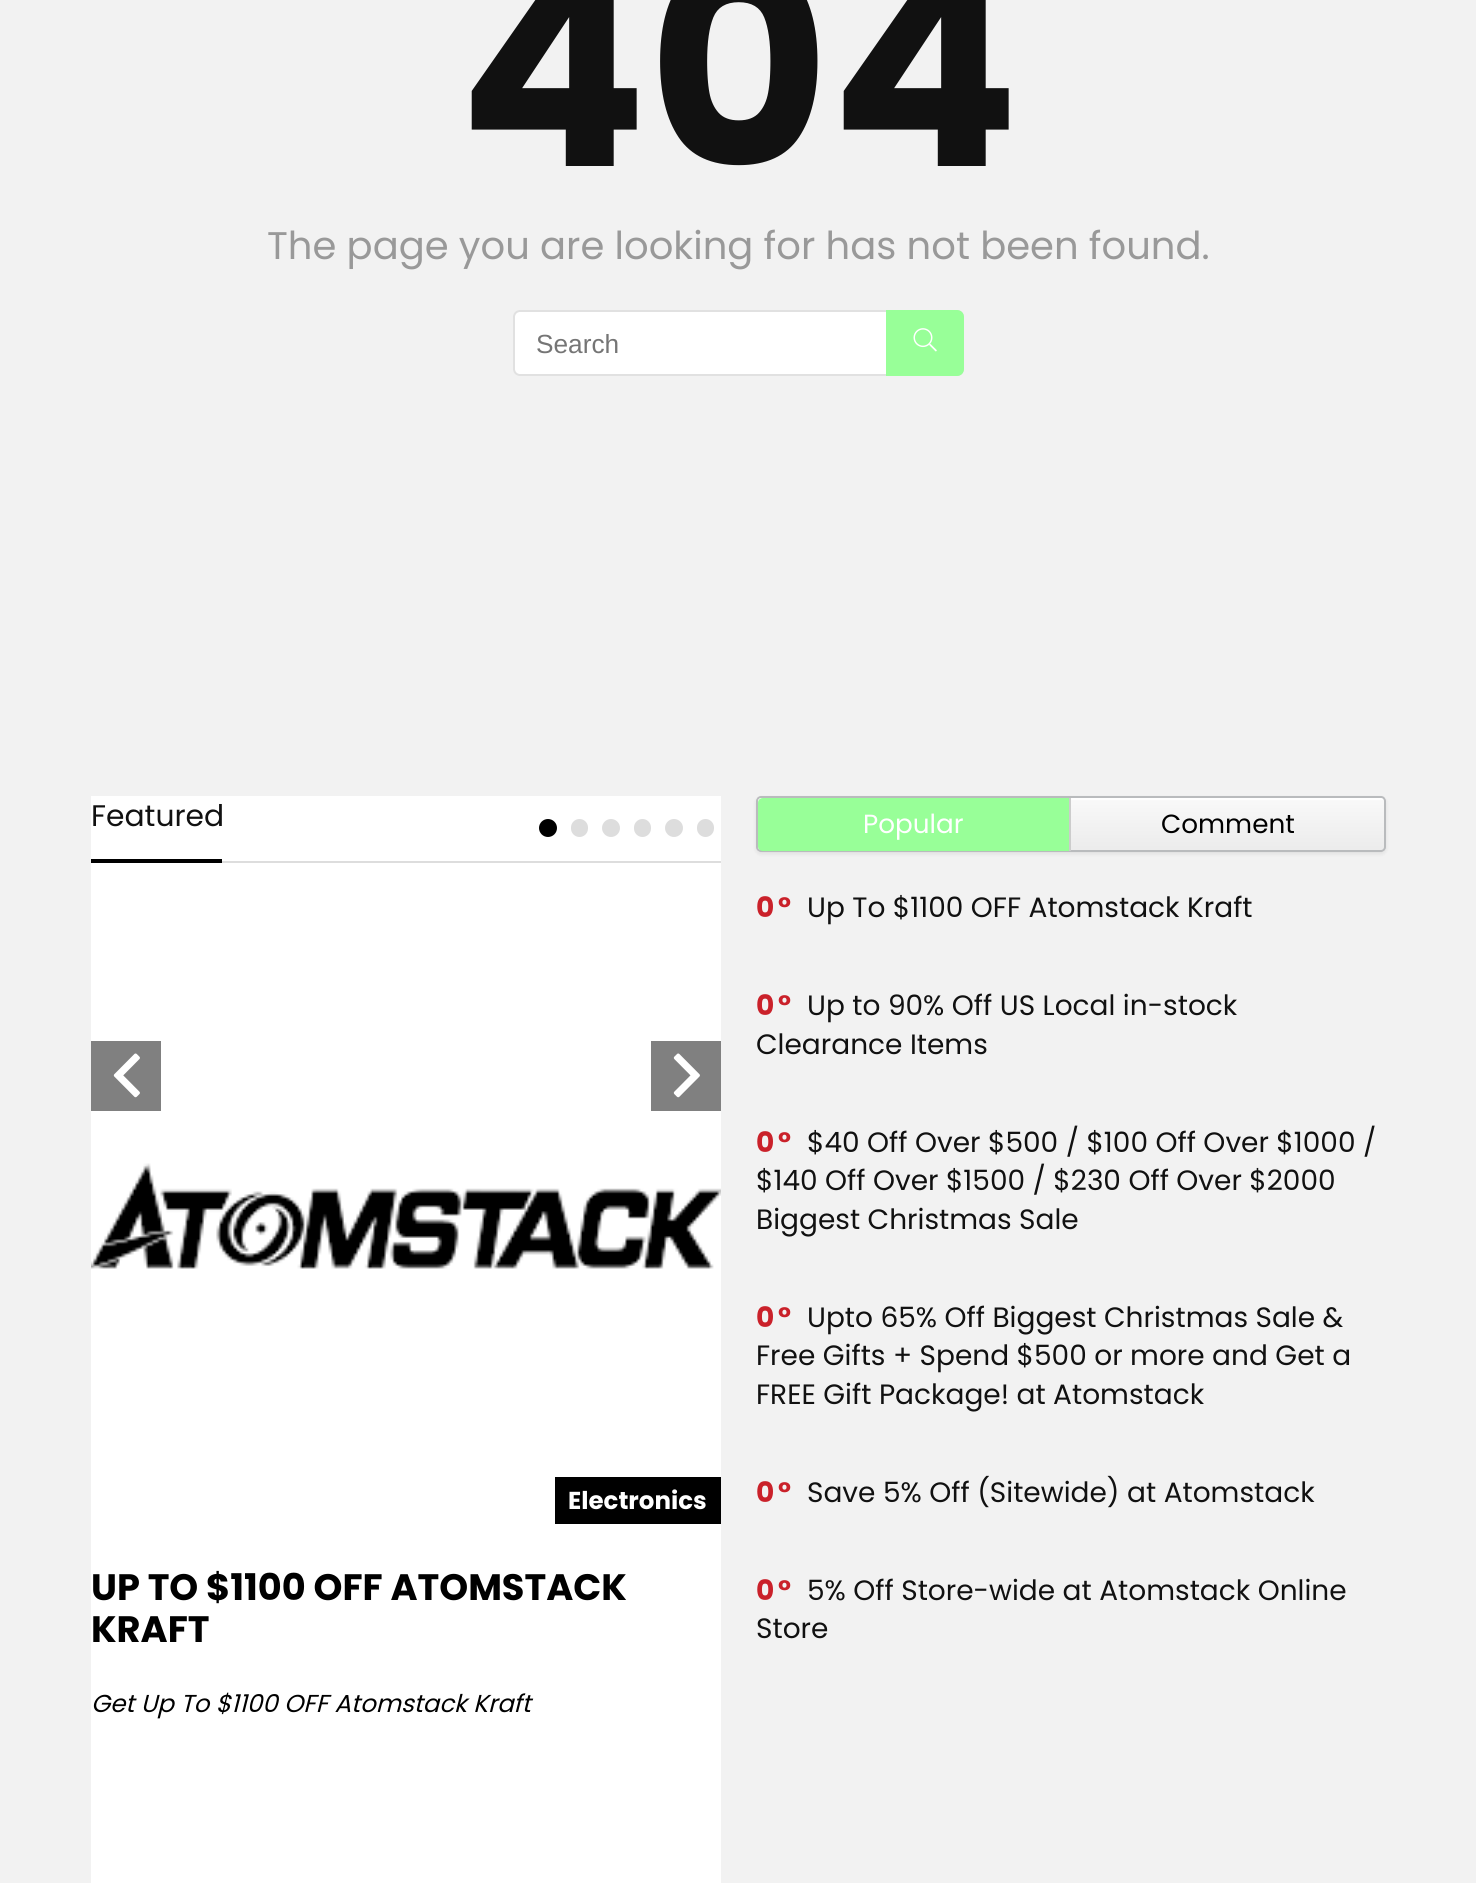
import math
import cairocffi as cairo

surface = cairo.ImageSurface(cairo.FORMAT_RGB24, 1476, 1883)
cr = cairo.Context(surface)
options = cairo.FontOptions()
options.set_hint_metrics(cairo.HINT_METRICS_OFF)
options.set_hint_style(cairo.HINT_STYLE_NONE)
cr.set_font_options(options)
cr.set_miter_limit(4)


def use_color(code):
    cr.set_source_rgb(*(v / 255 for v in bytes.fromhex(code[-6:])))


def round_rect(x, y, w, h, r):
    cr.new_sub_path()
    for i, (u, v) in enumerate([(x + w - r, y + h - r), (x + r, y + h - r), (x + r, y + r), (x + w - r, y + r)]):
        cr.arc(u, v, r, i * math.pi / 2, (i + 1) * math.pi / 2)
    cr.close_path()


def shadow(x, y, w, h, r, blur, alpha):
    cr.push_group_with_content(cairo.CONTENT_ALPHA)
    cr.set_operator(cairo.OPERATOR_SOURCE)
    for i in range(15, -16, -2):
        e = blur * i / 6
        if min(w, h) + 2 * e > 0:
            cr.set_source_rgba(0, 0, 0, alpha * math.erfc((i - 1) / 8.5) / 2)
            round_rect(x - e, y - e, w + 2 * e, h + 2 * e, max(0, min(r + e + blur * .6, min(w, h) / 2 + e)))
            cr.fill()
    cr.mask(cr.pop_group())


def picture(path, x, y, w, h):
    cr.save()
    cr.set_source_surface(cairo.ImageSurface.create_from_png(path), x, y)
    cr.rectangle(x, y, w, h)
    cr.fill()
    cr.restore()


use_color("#f2f2f2")
cr.paint()
cr.select_font_face("Poppins", cairo.FONT_SLANT_NORMAL, cairo.FONT_WEIGHT_BOLD)
cr.set_font_size(280)
use_color("#111111")
cr.move_to(458, 166)
cr.show_text("404")
cr.select_font_face("Poppins")
cr.set_font_size(38.5)
use_color("#999999")
cr.move_to(267, 259)
cr.show_text("The page you are looking for has not been found.")
use_color("#ffffff")
round_rect(514, 311, 449, 64, 6)
cr.fill_preserve()
use_color("#e1e1e1")
cr.stroke()
cr.select_font_face("Liberation Sans")
cr.set_font_size(26.25)
use_color("#757575")
cr.move_to(536, 353)
cr.show_text("Search")
use_color("#98ff98")
cr.new_path()
cr.move_to(886, 310)
cr.line_to(957, 310)
cr.curve_to(961, 310, 964, 313, 964, 317)
cr.line_to(964, 369)
cr.curve_to(964, 373, 961, 376, 957, 376)
cr.line_to(886, 376)
cr.close_path()
cr.fill()
picture("img1.png", 913, 328, 24, 24)
use_color("#ffffff")
cr.rectangle(91, 796, 630, 1087)
cr.fill()
use_color("#dddddd")
cr.rectangle(222, 861, 499, 2)
cr.fill()
cr.select_font_face("Poppins")
cr.set_font_size(29.75)
use_color("#111111")
cr.move_to(91, 826)
cr.show_text("Featured")
use_color("#000000")
cr.rectangle(91, 859, 131, 4)
cr.fill()
cr.arc(548, 828, 9, 0, 2 * math.pi)
cr.fill()
use_color("#dddddd")
round_rect(571, 819, 17, 18, 8.5)
cr.fill()
cr.arc(611, 828, 9, 0, 2 * math.pi)
cr.fill()
round_rect(634, 819, 17, 18, 8.5)
cr.fill()
cr.arc(674, 828, 9, 0, 2 * math.pi)
cr.fill()
round_rect(697, 819, 17, 18, 8.5)
cr.fill()
use_color("#808080")
cr.rectangle(91, 1041, 70, 70)
cr.fill()
picture("img2.png", 113, 1053, 27, 45)
cr.rectangle(651, 1041, 70, 70)
cr.fill()
picture("img3.png", 673, 1053, 27, 45)
picture("img4.png", 91, 1163, 630, 106)
use_color("#000000")
cr.rectangle(555, 1477, 166, 47)
cr.fill()
cr.select_font_face("Poppins", cairo.FONT_SLANT_NORMAL, cairo.FONT_WEIGHT_BOLD)
cr.set_font_size(24.5)
use_color("#ffffff")
cr.move_to(568, 1509)
cr.show_text("Electronics")
cr.set_font_size(36.75)
use_color("#000000")
cr.move_to(91, 1600)
cr.show_text("UP TO $1100 OFF ATOMSTACK")
cr.move_to(91, 1642)
cr.show_text("KRAFT")
cr.select_font_face("Poppins", cairo.FONT_SLANT_ITALIC)
cr.set_font_size(24.5)
cr.move_to(91, 1712)
cr.show_text("Get Up To $1100 OFF Atomstack Kraft")
cr.save()
cr.set_fill_rule(cairo.FILL_RULE_EVEN_ODD)
cr.new_path()
cr.move_to(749, 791)
cr.line_to(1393, 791)
cr.line_to(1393, 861)
cr.line_to(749, 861)
cr.close_path()
cr.move_to(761, 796)
cr.line_to(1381, 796)
cr.curve_to(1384, 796, 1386, 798, 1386, 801)
cr.line_to(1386, 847)
cr.curve_to(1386, 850, 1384, 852, 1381, 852)
cr.line_to(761, 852)
cr.curve_to(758, 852, 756, 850, 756, 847)
cr.line_to(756, 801)
cr.curve_to(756, 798, 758, 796, 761, 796)
cr.close_path()
cr.clip()
use_color("#000000")
shadow(756, 798, 630, 56, 5, 2, 0.08)
cr.restore()
cr.save()
round_rect(756, 796, 630, 56, 5)
cr.clip()
gradient = cairo.LinearGradient(1071, 798, 1071, 851)
gradient.add_color_stop_rgba(0.03, 1, 1, 1, 1)
gradient.add_color_stop_rgba(0.03, 0.976, 0.976, 0.976, 1)
gradient.add_color_stop_rgba(1, 0.922, 0.922, 0.922, 1)
cr.set_source(gradient)
cr.rectangle(756, 798, 630, 53)
cr.fill()
cr.restore()
round_rect(757, 797, 628, 54, 4)
use_color("#b9bbbd")
cr.stroke()
use_color("#98ff98")
cr.new_path()
cr.move_to(763, 798)
cr.line_to(1071, 798)
cr.line_to(1071, 851)
cr.line_to(763, 851)
cr.curve_to(760, 851, 758, 849, 758, 846)
cr.line_to(758, 803)
cr.curve_to(758, 800, 760, 798, 763, 798)
cr.close_path()
cr.fill()
use_color("#cccccc")
cr.rectangle(1069, 798, 2, 53)
cr.fill()
cr.select_font_face("Poppins")
cr.set_font_size(26.25)
use_color("#ffffff")
cr.move_to(863, 833)
cr.show_text("Popular")
use_color("#000000")
cr.move_to(1161, 833)
cr.show_text("Comment")
cr.select_font_face("Poppins", cairo.FONT_SLANT_NORMAL, cairo.FONT_WEIGHT_BOLD)
cr.set_font_size(28)
use_color("#ca212a")
cr.move_to(756, 917)
cr.show_text("0")
cr.move_to(778, 917)
cr.show_text("°")
cr.select_font_face("Poppins")
use_color("#111111")
cr.move_to(807, 917)
cr.show_text("Up To $1100 OFF Atomstack Kraft")
cr.select_font_face("Poppins", cairo.FONT_SLANT_NORMAL, cairo.FONT_WEIGHT_BOLD)
use_color("#ca212a")
cr.move_to(756, 1015)
cr.show_text("0")
cr.move_to(778, 1015)
cr.show_text("°")
cr.select_font_face("Poppins")
use_color("#111111")
cr.move_to(807, 1015)
cr.show_text("Up to 90% Off US Local in-stock")
cr.move_to(756, 1054)
cr.show_text("Clearance Items")
cr.select_font_face("Poppins", cairo.FONT_SLANT_NORMAL, cairo.FONT_WEIGHT_BOLD)
use_color("#ca212a")
cr.move_to(756, 1152)
cr.show_text("0")
cr.move_to(778, 1152)
cr.show_text("°")
cr.select_font_face("Poppins")
use_color("#111111")
cr.move_to(807, 1152)
cr.show_text("$40 Off Over $500 / $100 Off Over $1000 /")
cr.move_to(756, 1190)
cr.show_text("$140 Off Over $1500 / $230 Off Over $2000")
cr.move_to(756, 1229)
cr.show_text("Biggest Christmas Sale")
cr.select_font_face("Poppins", cairo.FONT_SLANT_NORMAL, cairo.FONT_WEIGHT_BOLD)
use_color("#ca212a")
cr.move_to(756, 1327)
cr.show_text("0")
cr.move_to(778, 1327)
cr.show_text("°")
cr.select_font_face("Poppins")
use_color("#111111")
cr.move_to(807, 1327)
cr.show_text("Upto 65% Off Biggest Christmas Sale &")
cr.move_to(756, 1365)
cr.show_text("Free Gifts + Spend $500 or more and Get a")
cr.move_to(756, 1404)
cr.show_text("FREE Gift Package! at Atomstack")
cr.select_font_face("Poppins", cairo.FONT_SLANT_NORMAL, cairo.FONT_WEIGHT_BOLD)
use_color("#ca212a")
cr.move_to(756, 1502)
cr.show_text("0")
cr.move_to(778, 1502)
cr.show_text("°")
cr.select_font_face("Poppins")
use_color("#111111")
cr.move_to(807, 1502)
cr.show_text("Save 5% Off (Sitewide) at Atomstack")
cr.select_font_face("Poppins", cairo.FONT_SLANT_NORMAL, cairo.FONT_WEIGHT_BOLD)
use_color("#ca212a")
cr.move_to(756, 1600)
cr.show_text("0")
cr.move_to(778, 1600)
cr.show_text("°")
cr.select_font_face("Poppins")
use_color("#111111")
cr.move_to(807, 1600)
cr.show_text("5% Off Store-wide at Atomstack Online")
cr.move_to(756, 1638)
cr.show_text("Store")
surface.write_to_png("result.png")
